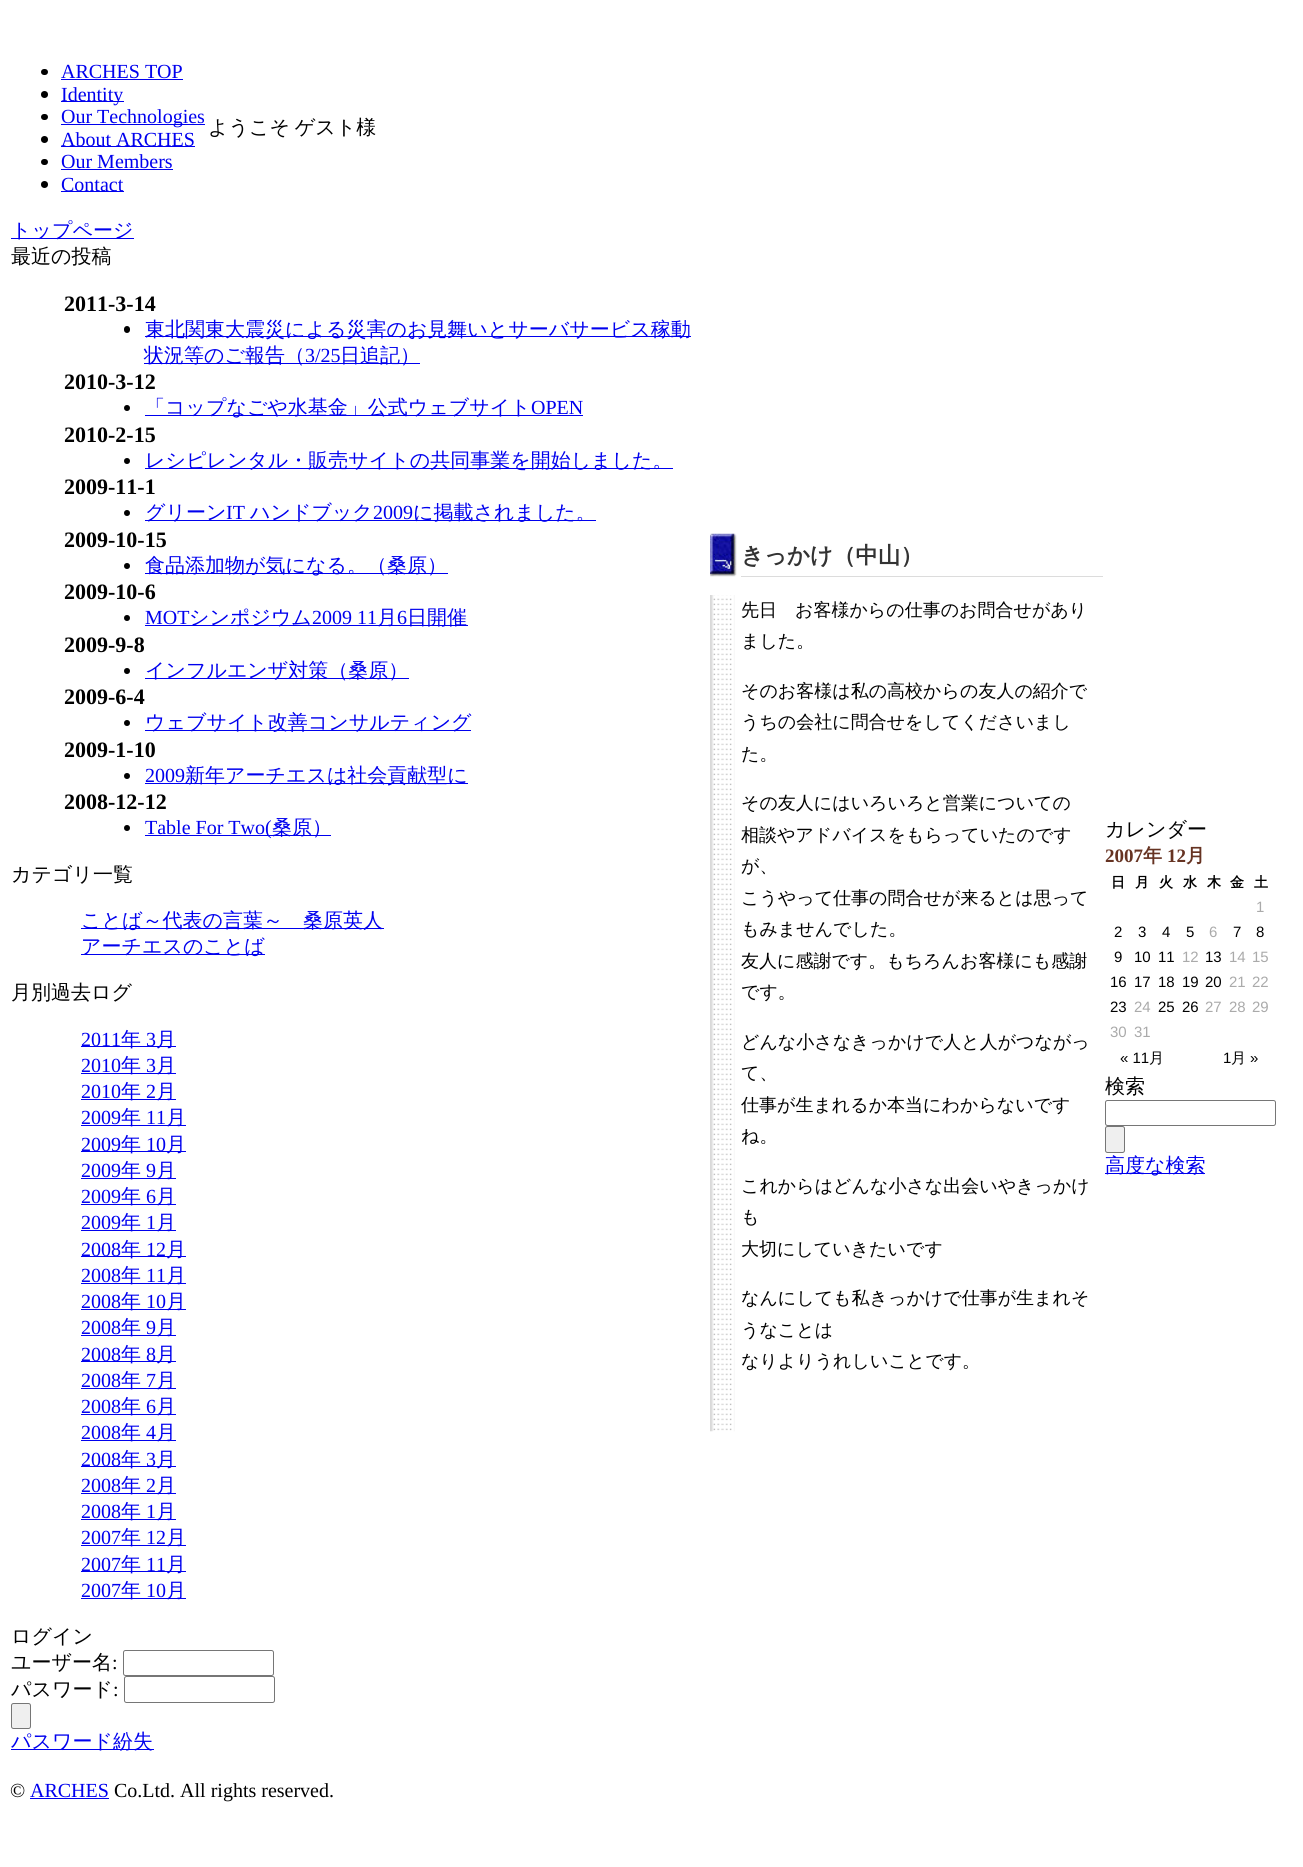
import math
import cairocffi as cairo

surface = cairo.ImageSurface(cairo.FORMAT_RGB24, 1303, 1867)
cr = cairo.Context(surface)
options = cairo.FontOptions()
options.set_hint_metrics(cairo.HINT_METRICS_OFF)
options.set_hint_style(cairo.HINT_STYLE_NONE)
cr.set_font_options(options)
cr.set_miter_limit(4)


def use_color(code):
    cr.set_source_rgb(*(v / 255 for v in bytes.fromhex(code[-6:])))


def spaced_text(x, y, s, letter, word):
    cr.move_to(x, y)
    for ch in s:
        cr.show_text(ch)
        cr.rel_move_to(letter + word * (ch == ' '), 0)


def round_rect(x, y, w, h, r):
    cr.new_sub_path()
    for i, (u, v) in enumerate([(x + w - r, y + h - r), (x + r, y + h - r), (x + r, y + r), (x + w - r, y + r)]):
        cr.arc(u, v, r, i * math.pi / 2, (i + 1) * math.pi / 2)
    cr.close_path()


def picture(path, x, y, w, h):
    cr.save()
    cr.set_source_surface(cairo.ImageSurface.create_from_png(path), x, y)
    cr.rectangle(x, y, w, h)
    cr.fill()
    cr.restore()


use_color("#ffffff")
cr.paint()
use_color("#000000")
round_rect(41, 69, 7, 6, 3)
cr.fill()
cr.select_font_face("Liberation Serif")
cr.set_font_size(20)
use_color("#0000ee")
cr.move_to(61, 78)
cr.show_text("ARCHES TOP")
cr.rectangle(61, 79, 122, 1)
cr.fill()
use_color("#000000")
cr.arc(44.5, 94.5, 3.5, 0, 2 * math.pi)
cr.fill()
use_color("#0000ee")
cr.rectangle(61, 101, 63, 1)
cr.fill()
cr.move_to(61, 101)
cr.show_text("Identity")
use_color("#000000")
round_rect(41, 114, 7, 6, 3)
cr.fill()
use_color("#0000ee")
cr.rectangle(61, 124, 144, 1)
cr.fill()
cr.move_to(61, 123)
cr.show_text("Our Technologies")
use_color("#000000")
cr.new_path()
cr.arc(44.5, 139.5, 3.5, 0, 2 * math.pi)
cr.fill()
use_color("#0000ee")
cr.rectangle(61, 146, 134, 1)
cr.fill()
cr.move_to(61, 146)
cr.show_text("About ARCHES")
use_color("#000000")
round_rect(41, 159, 7, 6, 3)
cr.fill()
use_color("#0000ee")
cr.move_to(61, 168)
cr.show_text("Our Members")
cr.rectangle(61, 169, 112, 1)
cr.fill()
use_color("#000000")
cr.arc(44.5, 184.5, 3.5, 0, 2 * math.pi)
cr.fill()
use_color("#0000ee")
cr.rectangle(61, 191, 63, 1)
cr.fill()
cr.move_to(61, 191)
cr.show_text("Contact")
cr.select_font_face("WenQuanYi Zen Hei Medium")
use_color("#000000")
spaced_text(208, 134, "ようこそ ゲスト様", 0, -1)
use_color("#0000ee")
cr.rectangle(11, 238, 123, 1)
cr.fill()
cr.move_to(11, 237)
cr.show_text("トップページ")
use_color("#000000")
cr.move_to(11, 263)
cr.show_text("最近の投稿")
cr.select_font_face("Liberation Serif", cairo.FONT_SLANT_NORMAL, cairo.FONT_WEIGHT_BOLD)
cr.set_font_size(22)
cr.move_to(64, 311)
cr.show_text("2011-3-14")
round_rect(124, 326, 6, 7, 3)
cr.fill()
use_color("#0000ee")
cr.rectangle(145, 336, 546, 1)
cr.fill()
cr.select_font_face("WenQuanYi Zen Hei Medium")
cr.set_font_size(20)
cr.move_to(145, 336)
cr.show_text("東北関東大震災による災害のお見舞いとサーバサービス稼動")
cr.rectangle(144, 363, 276, 1)
cr.fill()
cr.move_to(144, 362)
cr.show_text("状況等のご報告（")
cr.select_font_face("Liberation Serif")
cr.move_to(305, 362)
cr.show_text("3/25")
cr.select_font_face("WenQuanYi Zen Hei Medium")
cr.move_to(340, 362)
cr.show_text("日追記）")
cr.select_font_face("Liberation Serif", cairo.FONT_SLANT_NORMAL, cairo.FONT_WEIGHT_BOLD)
cr.set_font_size(22)
use_color("#000000")
cr.move_to(64, 389)
cr.show_text("2010-3-12")
cr.new_path()
cr.arc(127, 408, 3, 0, 2 * math.pi)
cr.fill()
use_color("#0000ee")
cr.rectangle(145, 415, 438, 1)
cr.fill()
cr.select_font_face("WenQuanYi Zen Hei Medium")
cr.set_font_size(20)
cr.move_to(145, 414)
cr.show_text("「コップなごや水基金」公式ウェブサイト")
cr.select_font_face("Liberation Serif")
cr.move_to(531, 414)
cr.show_text("OPEN")
cr.select_font_face("Liberation Serif", cairo.FONT_SLANT_NORMAL, cairo.FONT_WEIGHT_BOLD)
cr.set_font_size(22)
use_color("#000000")
cr.move_to(64, 442)
cr.show_text("2010-2-15")
cr.new_path()
cr.arc(127, 461, 3, 0, 2 * math.pi)
cr.fill()
use_color("#0000ee")
cr.rectangle(145, 468, 528, 1)
cr.fill()
cr.select_font_face("WenQuanYi Zen Hei Medium")
cr.set_font_size(20)
cr.move_to(145, 467)
cr.show_text("レシピレンタル・販売サイトの共同事業を開始しました。")
cr.select_font_face("Liberation Serif", cairo.FONT_SLANT_NORMAL, cairo.FONT_WEIGHT_BOLD)
cr.set_font_size(22)
use_color("#000000")
cr.move_to(64, 494)
cr.show_text("2009-11-1")
cr.new_path()
cr.arc(127, 513, 3, 0, 2 * math.pi)
cr.fill()
use_color("#0000ee")
cr.rectangle(145, 520, 451, 1)
cr.fill()
cr.select_font_face("WenQuanYi Zen Hei Medium")
cr.set_font_size(20)
cr.move_to(145, 519)
cr.show_text("グリーン")
cr.select_font_face("Liberation Serif")
cr.move_to(226, 519)
cr.show_text("IT")
cr.select_font_face("WenQuanYi Zen Hei Medium")
cr.move_to(250, 519)
cr.show_text("ハンドブック")
cr.select_font_face("Liberation Serif")
cr.move_to(373, 519)
cr.show_text("2009")
cr.select_font_face("WenQuanYi Zen Hei Medium")
cr.move_to(413, 519)
cr.show_text("に掲載されました。")
cr.select_font_face("Liberation Serif", cairo.FONT_SLANT_NORMAL, cairo.FONT_WEIGHT_BOLD)
cr.set_font_size(22)
use_color("#000000")
cr.move_to(64, 547)
cr.show_text("2009-10-15")
cr.new_path()
cr.arc(127, 566, 3, 0, 2 * math.pi)
cr.fill()
use_color("#0000ee")
cr.rectangle(145, 573, 303, 1)
cr.fill()
cr.select_font_face("WenQuanYi Zen Hei Medium")
cr.set_font_size(20)
cr.move_to(145, 572)
cr.show_text("食品添加物が気になる。（桑原）")
cr.select_font_face("Liberation Serif", cairo.FONT_SLANT_NORMAL, cairo.FONT_WEIGHT_BOLD)
cr.set_font_size(22)
use_color("#000000")
cr.move_to(64, 599)
cr.show_text("2009-10-6")
cr.new_path()
cr.arc(127, 618, 3, 0, 2 * math.pi)
cr.fill()
cr.select_font_face("Liberation Serif")
cr.set_font_size(20)
use_color("#0000ee")
cr.move_to(145, 624)
cr.show_text("MOT")
cr.rectangle(145, 625, 323, 1)
cr.fill()
cr.select_font_face("WenQuanYi Zen Hei Medium")
cr.move_to(189, 624)
cr.show_text("シンポジウム")
cr.select_font_face("Liberation Serif")
cr.move_to(312, 624)
cr.show_text("2009 11")
cr.select_font_face("WenQuanYi Zen Hei Medium")
cr.move_to(377, 624)
cr.show_text("月")
cr.select_font_face("Liberation Serif")
cr.move_to(397, 624)
cr.show_text("6")
cr.select_font_face("WenQuanYi Zen Hei Medium")
cr.move_to(407, 624)
cr.show_text("日開催")
cr.select_font_face("Liberation Serif", cairo.FONT_SLANT_NORMAL, cairo.FONT_WEIGHT_BOLD)
cr.set_font_size(22)
use_color("#000000")
cr.move_to(64, 652)
cr.show_text("2009-9-8")
cr.new_path()
cr.arc(127, 671, 3, 0, 2 * math.pi)
cr.fill()
use_color("#0000ee")
cr.rectangle(145, 678, 264, 1)
cr.fill()
cr.select_font_face("WenQuanYi Zen Hei Medium")
cr.set_font_size(20)
cr.move_to(145, 677)
cr.show_text("インフルエンザ対策（桑原）")
cr.select_font_face("Liberation Serif", cairo.FONT_SLANT_NORMAL, cairo.FONT_WEIGHT_BOLD)
cr.set_font_size(22)
use_color("#000000")
cr.move_to(64, 704)
cr.show_text("2009-6-4")
cr.new_path()
cr.arc(127, 723, 3, 0, 2 * math.pi)
cr.fill()
use_color("#0000ee")
cr.rectangle(145, 730, 326, 1)
cr.fill()
cr.select_font_face("WenQuanYi Zen Hei Medium")
cr.set_font_size(20)
cr.move_to(145, 729)
cr.show_text("ウェブサイト改善コンサルティング")
cr.select_font_face("Liberation Serif", cairo.FONT_SLANT_NORMAL, cairo.FONT_WEIGHT_BOLD)
cr.set_font_size(22)
use_color("#000000")
cr.move_to(64, 757)
cr.show_text("2009-1-10")
cr.new_path()
cr.arc(127, 776, 3, 0, 2 * math.pi)
cr.fill()
cr.select_font_face("Liberation Serif")
cr.set_font_size(20)
use_color("#0000ee")
cr.move_to(145, 782)
cr.show_text("2009")
cr.rectangle(145, 783, 323, 1)
cr.fill()
cr.select_font_face("WenQuanYi Zen Hei Medium")
cr.move_to(185, 782)
cr.show_text("新年アーチエスは社会貢献型に")
cr.select_font_face("Liberation Serif", cairo.FONT_SLANT_NORMAL, cairo.FONT_WEIGHT_BOLD)
cr.set_font_size(22)
use_color("#000000")
cr.move_to(64, 809)
cr.show_text("2008-12-12")
cr.new_path()
cr.arc(127, 828, 3, 0, 2 * math.pi)
cr.fill()
use_color("#0000ee")
cr.rectangle(145, 835, 186, 1)
cr.fill()
cr.select_font_face("Liberation Serif")
cr.set_font_size(20)
cr.move_to(145, 834)
cr.show_text("Table For Two(")
cr.select_font_face("WenQuanYi Zen Hei Medium")
cr.move_to(272, 834)
cr.show_text("桑原）")
use_color("#000000")
cr.move_to(11, 881)
cr.show_text("カテゴリ一覧")
use_color("#0000ee")
cr.rectangle(81, 928, 303, 1)
cr.fill()
cr.move_to(81, 927)
cr.show_text("ことば～代表の言葉～　桑原英人")
cr.rectangle(81, 954, 184, 1)
cr.fill()
cr.move_to(81, 953)
cr.show_text("アーチエスのことば")
use_color("#000000")
cr.move_to(11, 999)
cr.show_text("月別過去ログ")
use_color("#0000ee")
cr.rectangle(81, 1046, 95, 1)
cr.fill()
cr.select_font_face("Liberation Serif")
cr.move_to(81, 1046)
cr.show_text("2011")
cr.select_font_face("WenQuanYi Zen Hei Medium")
cr.move_to(121, 1046)
cr.show_text("年")
cr.select_font_face("Liberation Serif")
cr.move_to(146, 1046)
cr.show_text("3")
cr.select_font_face("WenQuanYi Zen Hei Medium")
cr.move_to(156, 1046)
cr.show_text("月")
cr.select_font_face("Liberation Serif")
cr.move_to(81, 1072)
cr.show_text("2010")
cr.rectangle(81, 1073, 95, 1)
cr.fill()
cr.select_font_face("WenQuanYi Zen Hei Medium")
cr.move_to(121, 1072)
cr.show_text("年")
cr.select_font_face("Liberation Serif")
cr.move_to(146, 1072)
cr.show_text("3")
cr.select_font_face("WenQuanYi Zen Hei Medium")
cr.move_to(156, 1072)
cr.show_text("月")
cr.select_font_face("Liberation Serif")
cr.move_to(81, 1098)
cr.show_text("2010")
cr.rectangle(81, 1099, 95, 1)
cr.fill()
cr.select_font_face("WenQuanYi Zen Hei Medium")
cr.move_to(121, 1098)
cr.show_text("年")
cr.select_font_face("Liberation Serif")
cr.move_to(146, 1098)
cr.show_text("2")
cr.select_font_face("WenQuanYi Zen Hei Medium")
cr.move_to(156, 1098)
cr.show_text("月")
cr.select_font_face("Liberation Serif")
cr.move_to(81, 1124)
cr.show_text("2009")
cr.rectangle(81, 1125, 105, 1)
cr.fill()
cr.select_font_face("WenQuanYi Zen Hei Medium")
cr.move_to(121, 1124)
cr.show_text("年")
cr.select_font_face("Liberation Serif")
cr.move_to(146, 1124)
cr.show_text("11")
cr.select_font_face("WenQuanYi Zen Hei Medium")
cr.move_to(166, 1124)
cr.show_text("月")
cr.rectangle(81, 1151, 105, 1)
cr.fill()
cr.select_font_face("Liberation Serif")
cr.move_to(81, 1151)
cr.show_text("2009")
cr.select_font_face("WenQuanYi Zen Hei Medium")
cr.move_to(121, 1151)
cr.show_text("年")
cr.select_font_face("Liberation Serif")
cr.move_to(146, 1151)
cr.show_text("10")
cr.select_font_face("WenQuanYi Zen Hei Medium")
cr.move_to(166, 1151)
cr.show_text("月")
cr.select_font_face("Liberation Serif")
cr.move_to(81, 1177)
cr.show_text("2009")
cr.rectangle(81, 1178, 95, 1)
cr.fill()
cr.select_font_face("WenQuanYi Zen Hei Medium")
cr.move_to(121, 1177)
cr.show_text("年")
cr.select_font_face("Liberation Serif")
cr.move_to(146, 1177)
cr.show_text("9")
cr.select_font_face("WenQuanYi Zen Hei Medium")
cr.move_to(156, 1177)
cr.show_text("月")
cr.select_font_face("Liberation Serif")
cr.move_to(81, 1203)
cr.show_text("2009")
cr.rectangle(81, 1204, 95, 1)
cr.fill()
cr.select_font_face("WenQuanYi Zen Hei Medium")
cr.move_to(121, 1203)
cr.show_text("年")
cr.select_font_face("Liberation Serif")
cr.move_to(146, 1203)
cr.show_text("6")
cr.select_font_face("WenQuanYi Zen Hei Medium")
cr.move_to(156, 1203)
cr.show_text("月")
cr.select_font_face("Liberation Serif")
cr.move_to(81, 1229)
cr.show_text("2009")
cr.rectangle(81, 1230, 95, 1)
cr.fill()
cr.select_font_face("WenQuanYi Zen Hei Medium")
cr.move_to(121, 1229)
cr.show_text("年")
cr.select_font_face("Liberation Serif")
cr.move_to(146, 1229)
cr.show_text("1")
cr.select_font_face("WenQuanYi Zen Hei Medium")
cr.move_to(156, 1229)
cr.show_text("月")
cr.rectangle(81, 1256, 105, 1)
cr.fill()
cr.select_font_face("Liberation Serif")
cr.move_to(81, 1256)
cr.show_text("2008")
cr.select_font_face("WenQuanYi Zen Hei Medium")
cr.move_to(121, 1256)
cr.show_text("年")
cr.select_font_face("Liberation Serif")
cr.move_to(146, 1256)
cr.show_text("12")
cr.select_font_face("WenQuanYi Zen Hei Medium")
cr.move_to(166, 1256)
cr.show_text("月")
cr.select_font_face("Liberation Serif")
cr.move_to(81, 1282)
cr.show_text("2008")
cr.rectangle(81, 1283, 105, 1)
cr.fill()
cr.select_font_face("WenQuanYi Zen Hei Medium")
cr.move_to(121, 1282)
cr.show_text("年")
cr.select_font_face("Liberation Serif")
cr.move_to(146, 1282)
cr.show_text("11")
cr.select_font_face("WenQuanYi Zen Hei Medium")
cr.move_to(166, 1282)
cr.show_text("月")
cr.select_font_face("Liberation Serif")
cr.move_to(81, 1308)
cr.show_text("2008")
cr.rectangle(81, 1309, 105, 1)
cr.fill()
cr.select_font_face("WenQuanYi Zen Hei Medium")
cr.move_to(121, 1308)
cr.show_text("年")
cr.select_font_face("Liberation Serif")
cr.move_to(146, 1308)
cr.show_text("10")
cr.select_font_face("WenQuanYi Zen Hei Medium")
cr.move_to(166, 1308)
cr.show_text("月")
cr.select_font_face("Liberation Serif")
cr.move_to(81, 1334)
cr.show_text("2008")
cr.rectangle(81, 1335, 95, 1)
cr.fill()
cr.select_font_face("WenQuanYi Zen Hei Medium")
cr.move_to(121, 1334)
cr.show_text("年")
cr.select_font_face("Liberation Serif")
cr.move_to(146, 1334)
cr.show_text("9")
cr.select_font_face("WenQuanYi Zen Hei Medium")
cr.move_to(156, 1334)
cr.show_text("月")
cr.rectangle(81, 1361, 95, 1)
cr.fill()
cr.select_font_face("Liberation Serif")
cr.move_to(81, 1361)
cr.show_text("2008")
cr.select_font_face("WenQuanYi Zen Hei Medium")
cr.move_to(121, 1361)
cr.show_text("年")
cr.select_font_face("Liberation Serif")
cr.move_to(146, 1361)
cr.show_text("8")
cr.select_font_face("WenQuanYi Zen Hei Medium")
cr.move_to(156, 1361)
cr.show_text("月")
cr.select_font_face("Liberation Serif")
cr.move_to(81, 1387)
cr.show_text("2008")
cr.rectangle(81, 1388, 95, 1)
cr.fill()
cr.select_font_face("WenQuanYi Zen Hei Medium")
cr.move_to(121, 1387)
cr.show_text("年")
cr.select_font_face("Liberation Serif")
cr.move_to(146, 1387)
cr.show_text("7")
cr.select_font_face("WenQuanYi Zen Hei Medium")
cr.move_to(156, 1387)
cr.show_text("月")
cr.select_font_face("Liberation Serif")
cr.move_to(81, 1413)
cr.show_text("2008")
cr.rectangle(81, 1414, 95, 1)
cr.fill()
cr.select_font_face("WenQuanYi Zen Hei Medium")
cr.move_to(121, 1413)
cr.show_text("年")
cr.select_font_face("Liberation Serif")
cr.move_to(146, 1413)
cr.show_text("6")
cr.select_font_face("WenQuanYi Zen Hei Medium")
cr.move_to(156, 1413)
cr.show_text("月")
cr.select_font_face("Liberation Serif")
cr.move_to(81, 1439)
cr.show_text("2008")
cr.rectangle(81, 1440, 95, 1)
cr.fill()
cr.select_font_face("WenQuanYi Zen Hei Medium")
cr.move_to(121, 1439)
cr.show_text("年")
cr.select_font_face("Liberation Serif")
cr.move_to(146, 1439)
cr.show_text("4")
cr.select_font_face("WenQuanYi Zen Hei Medium")
cr.move_to(156, 1439)
cr.show_text("月")
cr.rectangle(81, 1466, 95, 1)
cr.fill()
cr.select_font_face("Liberation Serif")
cr.move_to(81, 1466)
cr.show_text("2008")
cr.select_font_face("WenQuanYi Zen Hei Medium")
cr.move_to(121, 1466)
cr.show_text("年")
cr.select_font_face("Liberation Serif")
cr.move_to(146, 1466)
cr.show_text("3")
cr.select_font_face("WenQuanYi Zen Hei Medium")
cr.move_to(156, 1466)
cr.show_text("月")
cr.select_font_face("Liberation Serif")
cr.move_to(81, 1492)
cr.show_text("2008")
cr.rectangle(81, 1493, 95, 1)
cr.fill()
cr.select_font_face("WenQuanYi Zen Hei Medium")
cr.move_to(121, 1492)
cr.show_text("年")
cr.select_font_face("Liberation Serif")
cr.move_to(146, 1492)
cr.show_text("2")
cr.select_font_face("WenQuanYi Zen Hei Medium")
cr.move_to(156, 1492)
cr.show_text("月")
cr.select_font_face("Liberation Serif")
cr.move_to(81, 1518)
cr.show_text("2008")
cr.rectangle(81, 1519, 95, 1)
cr.fill()
cr.select_font_face("WenQuanYi Zen Hei Medium")
cr.move_to(121, 1518)
cr.show_text("年")
cr.select_font_face("Liberation Serif")
cr.move_to(146, 1518)
cr.show_text("1")
cr.select_font_face("WenQuanYi Zen Hei Medium")
cr.move_to(156, 1518)
cr.show_text("月")
cr.select_font_face("Liberation Serif")
cr.move_to(81, 1544)
cr.show_text("2007")
cr.rectangle(81, 1545, 105, 1)
cr.fill()
cr.select_font_face("WenQuanYi Zen Hei Medium")
cr.move_to(121, 1544)
cr.show_text("年")
cr.select_font_face("Liberation Serif")
cr.move_to(146, 1544)
cr.show_text("12")
cr.select_font_face("WenQuanYi Zen Hei Medium")
cr.move_to(166, 1544)
cr.show_text("月")
cr.rectangle(81, 1571, 105, 1)
cr.fill()
cr.select_font_face("Liberation Serif")
cr.move_to(81, 1571)
cr.show_text("2007")
cr.select_font_face("WenQuanYi Zen Hei Medium")
cr.move_to(121, 1571)
cr.show_text("年")
cr.select_font_face("Liberation Serif")
cr.move_to(146, 1571)
cr.show_text("11")
cr.select_font_face("WenQuanYi Zen Hei Medium")
cr.move_to(166, 1571)
cr.show_text("月")
cr.select_font_face("Liberation Serif")
cr.move_to(81, 1597)
cr.show_text("2007")
cr.rectangle(81, 1598, 105, 1)
cr.fill()
cr.select_font_face("WenQuanYi Zen Hei Medium")
cr.move_to(121, 1597)
cr.show_text("年")
cr.select_font_face("Liberation Serif")
cr.move_to(146, 1597)
cr.show_text("10")
cr.select_font_face("WenQuanYi Zen Hei Medium")
cr.move_to(166, 1597)
cr.show_text("月")
use_color("#000000")
cr.move_to(11, 1643)
cr.show_text("ログイン")
cr.move_to(11, 1669)
cr.show_text("ユーザー名")
cr.select_font_face("Liberation Serif")
cr.move_to(112, 1669)
cr.show_text(":")
round_rect(123.5, 1650.5, 150, 25, 2)
use_color("#767676")
cr.set_line_width(1)
cr.stroke()
cr.select_font_face("WenQuanYi Zen Hei Medium")
use_color("#000000")
cr.move_to(11, 1696)
cr.show_text("パスワード")
cr.select_font_face("Liberation Serif")
cr.move_to(113, 1696)
cr.show_text(":")
round_rect(124.5, 1676.5, 150, 26, 2)
use_color("#767676")
cr.stroke()
use_color("#efefef")
round_rect(11.5, 1703.5, 19, 25, 2)
cr.fill_preserve()
use_color("#767676")
cr.stroke()
use_color("#0000ee")
cr.rectangle(11, 1749, 143, 1)
cr.fill()
cr.select_font_face("WenQuanYi Zen Hei Medium")
cr.move_to(11, 1748)
cr.show_text("パスワード紛失")
picture("img1.png", 710, 533, 27, 44)
use_color("#dcdcdc")
cr.rectangle(741, 576, 362, 1)
cr.fill()
cr.select_font_face("WenQuanYi Zen Hei", cairo.FONT_SLANT_NORMAL, cairo.FONT_WEIGHT_BOLD)
cr.set_font_size(22.5)
use_color("#333333")
cr.move_to(741, 563)
cr.show_text("きっかけ（中山）")
picture("img2.png", 710, 595, 25, 837)
cr.select_font_face("WenQuanYi Zen Hei Medium")
cr.set_font_size(18)
use_color("#000000")
cr.move_to(741, 616)
cr.show_text("先日　お客様からの仕事のお問合せがあり")
cr.move_to(741, 647)
cr.show_text("ました。")
cr.move_to(741, 697)
cr.show_text("そのお客様は私の高校からの友人の紹介で")
cr.move_to(741, 728)
cr.show_text("うちの会社に問合せをしてくださいまし")
cr.move_to(741, 760)
cr.show_text("た。")
cr.move_to(741, 809)
cr.show_text("その友人にはいろいろと営業についての")
cr.move_to(741, 841)
cr.show_text("相談やアドバイスをもらっていたのです")
cr.move_to(741, 872)
cr.show_text("が、")
cr.move_to(741, 904)
cr.show_text("こうやって仕事の問合せが来るとは思って")
cr.move_to(741, 935)
cr.show_text("もみませんでした。")
cr.move_to(741, 967)
cr.show_text("友人に感謝です。もちろんお客様にも感謝")
cr.move_to(741, 998)
cr.show_text("です。")
cr.move_to(741, 1048)
cr.show_text("どんな小さなきっかけで人と人がつながっ")
cr.move_to(741, 1079)
cr.show_text("て、")
cr.move_to(741, 1111)
cr.show_text("仕事が生まれるか本当にわからないです")
cr.move_to(741, 1142)
cr.show_text("ね。")
cr.move_to(741, 1192)
cr.show_text("これからはどんな小さな出会いやきっかけ")
cr.move_to(741, 1223)
cr.show_text("も")
cr.move_to(741, 1255)
cr.show_text("大切にしていきたいです")
cr.move_to(741, 1304)
cr.show_text("なんにしても私きっかけで仕事が生まれそ")
cr.move_to(741, 1336)
cr.show_text("うなことは")
cr.move_to(741, 1367)
cr.show_text("なりよりうれしいことです。")
cr.set_font_size(20)
cr.move_to(1105, 836)
cr.show_text("カレンダー")
cr.select_font_face("Liberation Serif", cairo.FONT_SLANT_NORMAL, cairo.FONT_WEIGHT_BOLD)
cr.set_font_size(19)
use_color("#663322")
cr.move_to(1105, 862)
cr.show_text("2007")
cr.select_font_face("WenQuanYi Zen Hei", cairo.FONT_SLANT_NORMAL, cairo.FONT_WEIGHT_BOLD)
cr.move_to(1143, 862)
cr.show_text("年")
cr.select_font_face("Liberation Serif", cairo.FONT_SLANT_NORMAL, cairo.FONT_WEIGHT_BOLD)
cr.move_to(1167, 862)
cr.show_text("12")
cr.select_font_face("WenQuanYi Zen Hei", cairo.FONT_SLANT_NORMAL, cairo.FONT_WEIGHT_BOLD)
cr.move_to(1186, 862)
cr.show_text("月")
cr.set_font_size(14)
use_color("#000000")
cr.move_to(1111, 887)
cr.show_text("日")
cr.move_to(1135, 887)
cr.show_text("月")
cr.move_to(1159, 887)
cr.show_text("火")
cr.move_to(1183, 887)
cr.show_text("水")
cr.move_to(1207, 887)
cr.show_text("木")
cr.move_to(1230, 887)
cr.show_text("金")
cr.move_to(1254, 887)
cr.show_text("土")
cr.select_font_face("Liberation Sans")
cr.set_font_size(15)
use_color("#aaaaaa")
cr.move_to(1256, 912)
cr.show_text("1")
use_color("#000000")
cr.move_to(1114, 937)
cr.show_text("2")
cr.move_to(1138, 937)
cr.show_text("3")
cr.move_to(1162, 937)
cr.show_text("4")
cr.move_to(1186, 937)
cr.show_text("5")
use_color("#aaaaaa")
cr.move_to(1209, 937)
cr.show_text("6")
use_color("#000000")
cr.move_to(1233, 937)
cr.show_text("7")
cr.move_to(1256, 937)
cr.show_text("8")
cr.move_to(1114, 962)
cr.show_text("9")
cr.move_to(1134, 962)
cr.show_text("10")
cr.move_to(1158, 962)
cr.show_text("11")
use_color("#aaaaaa")
cr.move_to(1182, 962)
cr.show_text("12")
use_color("#000000")
cr.move_to(1205, 962)
cr.show_text("13")
use_color("#aaaaaa")
cr.move_to(1229, 962)
cr.show_text("14")
cr.move_to(1252, 962)
cr.show_text("15")
use_color("#000000")
cr.move_to(1110, 987)
cr.show_text("16")
cr.move_to(1134, 987)
cr.show_text("17")
cr.move_to(1158, 987)
cr.show_text("18")
cr.move_to(1182, 987)
cr.show_text("19")
cr.move_to(1205, 987)
cr.show_text("20")
use_color("#aaaaaa")
cr.move_to(1229, 987)
cr.show_text("21")
cr.move_to(1252, 987)
cr.show_text("22")
use_color("#000000")
cr.move_to(1110, 1012)
cr.show_text("23")
use_color("#aaaaaa")
cr.move_to(1134, 1012)
cr.show_text("24")
use_color("#000000")
cr.move_to(1158, 1012)
cr.show_text("25")
cr.move_to(1182, 1012)
cr.show_text("26")
use_color("#aaaaaa")
cr.move_to(1205, 1012)
cr.show_text("27")
cr.move_to(1229, 1012)
cr.show_text("28")
cr.move_to(1252, 1012)
cr.show_text("29")
cr.move_to(1110, 1037)
cr.show_text("30")
cr.move_to(1134, 1037)
cr.show_text("31")
use_color("#000000")
cr.move_to(1120, 1063)
cr.show_text("« 11")
cr.select_font_face("WenQuanYi Zen Hei Medium")
cr.move_to(1149, 1063)
cr.show_text("月")
cr.select_font_face("Liberation Sans")
cr.move_to(1223, 1063)
cr.show_text("1")
cr.select_font_face("WenQuanYi Zen Hei Medium")
cr.move_to(1231, 1063)
cr.show_text("月")
cr.select_font_face("Liberation Sans")
cr.move_to(1250, 1063)
cr.show_text("»")
cr.select_font_face("WenQuanYi Zen Hei Medium")
cr.set_font_size(20)
cr.move_to(1105, 1093)
cr.show_text("検索")
round_rect(1105.5, 1100.5, 170, 25, 2)
use_color("#767676")
cr.stroke()
use_color("#efefef")
round_rect(1105.5, 1126.5, 19, 26, 2)
cr.fill_preserve()
use_color("#767676")
cr.stroke()
use_color("#0000ee")
cr.rectangle(1105, 1173, 100, 1)
cr.fill()
cr.move_to(1105, 1172)
cr.show_text("高度な検索")
cr.select_font_face("Liberation Serif")
use_color("#000000")
cr.move_to(10, 1797)
cr.show_text("©")
use_color("#0000ee")
cr.move_to(30, 1797)
cr.show_text("ARCHES")
cr.rectangle(30, 1798, 79, 1)
cr.fill()
use_color("#000000")
cr.move_to(114, 1797)
cr.show_text("Co.Ltd. All rights reserved.")
surface.write_to_png("result.png")
